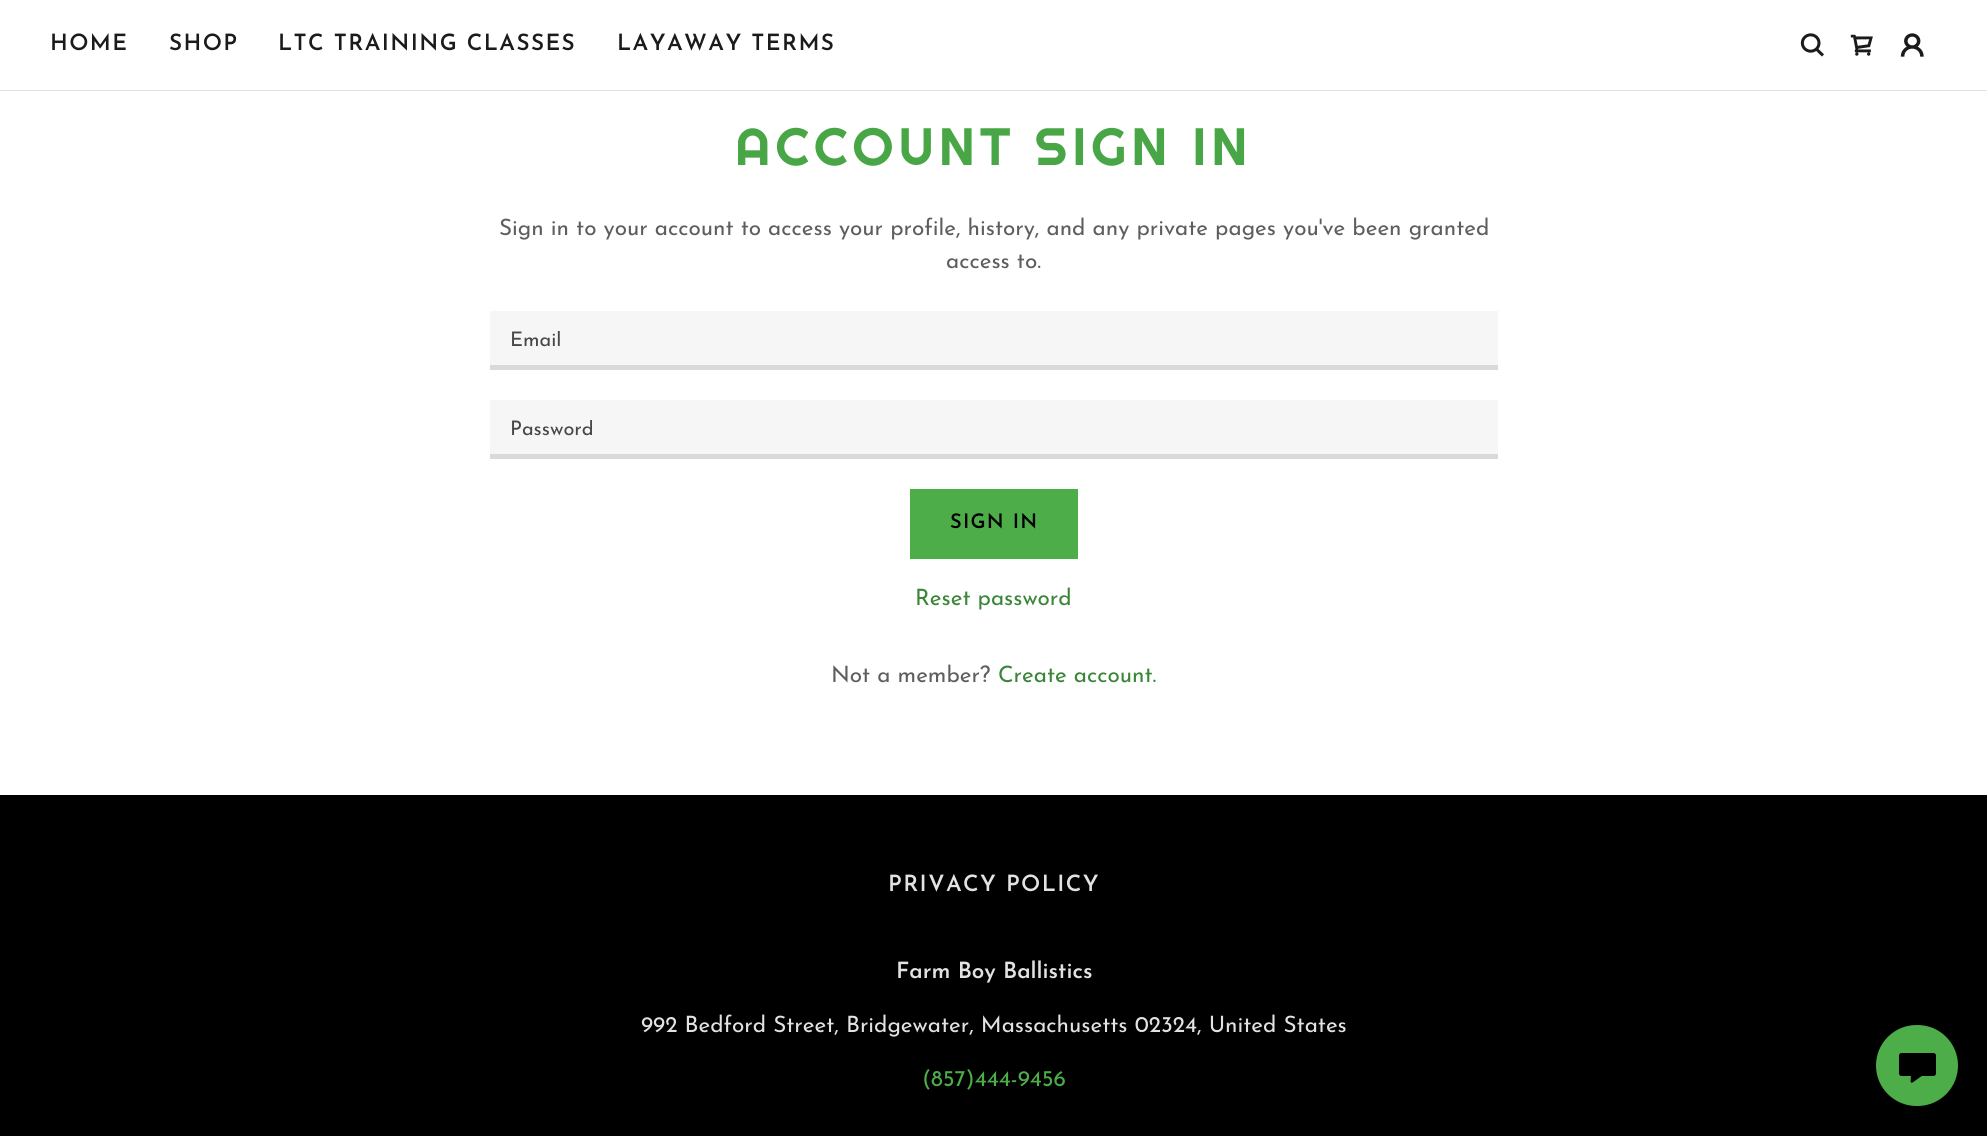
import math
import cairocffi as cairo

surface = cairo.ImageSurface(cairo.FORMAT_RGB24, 1987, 1136)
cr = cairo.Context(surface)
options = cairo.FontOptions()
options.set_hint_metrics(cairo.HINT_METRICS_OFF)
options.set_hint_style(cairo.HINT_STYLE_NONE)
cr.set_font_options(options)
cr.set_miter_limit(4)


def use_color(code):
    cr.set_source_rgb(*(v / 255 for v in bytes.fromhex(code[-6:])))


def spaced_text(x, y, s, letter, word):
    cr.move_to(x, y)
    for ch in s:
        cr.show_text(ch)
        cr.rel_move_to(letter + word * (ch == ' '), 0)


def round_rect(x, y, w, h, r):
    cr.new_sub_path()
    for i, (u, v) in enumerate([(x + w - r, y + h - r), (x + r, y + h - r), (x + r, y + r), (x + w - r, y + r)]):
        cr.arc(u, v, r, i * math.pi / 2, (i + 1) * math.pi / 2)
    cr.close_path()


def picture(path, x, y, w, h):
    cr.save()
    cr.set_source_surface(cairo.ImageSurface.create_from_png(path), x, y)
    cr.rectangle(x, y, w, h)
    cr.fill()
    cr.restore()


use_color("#000000")
cr.paint()
use_color("#ffffff")
cr.rectangle(0, 0, 1987, 90)
cr.fill()
cr.select_font_face("Josefin Sans SemiBold")
cr.set_font_size(22.5)
use_color("#1b1b1b")
spaced_text(50, 50, "HOME", 1.4, 0)
spaced_text(169, 50, "SHOP", 1.4, 0)
spaced_text(278, 50, "LTC TRAINING CLASSES", 1.4, 0)
spaced_text(617, 50, "LAYAWAY TERMS", 1.4, 0)
picture("img1.png", 1800, 33, 24, 24)
picture("img2.png", 1850, 34, 23, 22)
picture("img3.png", 1900, 33, 24, 24)
use_color("#e2e2e2")
cr.rectangle(0, 90, 1987, 1)
cr.fill()
use_color("#ffffff")
cr.rectangle(0, 91, 1987, 704)
cr.fill()
cr.select_font_face("Righteous")
cr.set_font_size(52.5)
use_color("#48a646")
spaced_text(735, 165, "ACCOUNT SIGN IN", 5, 0)
cr.select_font_face("Josefin Sans")
cr.set_font_size(22.5)
use_color("#5e5e5e")
cr.move_to(499, 235)
cr.show_text("Sign in to your account to access your profile, history, and any private pages you've been granted")
cr.move_to(946, 268)
cr.show_text("access to.")
use_color("#f6f6f6")
cr.rectangle(490, 311, 1008, 54)
cr.fill()
use_color("#dadada")
cr.rectangle(490, 365, 1008, 5)
cr.fill()
cr.save()
cr.rectangle(510, 331, 968, 20)
cr.clip()
cr.set_font_size(20)
use_color("#474747")
cr.move_to(510, 346)
cr.show_text("Email")
cr.restore()
use_color("#f6f6f6")
cr.rectangle(490, 400, 1008, 54)
cr.fill()
use_color("#dadada")
cr.rectangle(490, 454, 1008, 5)
cr.fill()
cr.save()
cr.rectangle(510, 420, 968, 20)
cr.clip()
cr.set_font_size(20)
use_color("#474747")
cr.move_to(510, 435)
cr.show_text("Password")
cr.restore()
use_color("#4cad49")
cr.rectangle(910, 489, 168, 70)
cr.fill()
cr.select_font_face("Josefin Sans SemiBold")
cr.set_font_size(20)
use_color("#000000")
spaced_text(950, 528, "SIGN IN", 1.25, 0)
cr.select_font_face("Josefin Sans")
cr.set_font_size(22.5)
use_color("#3a8538")
cr.move_to(915, 605)
cr.show_text("Reset password")
use_color("#5e5e5e")
cr.move_to(831, 682)
cr.show_text("Not a member?")
use_color("#3a8538")
cr.move_to(998, 682)
cr.show_text("Create account.")
cr.select_font_face("Josefin Sans SemiBold")
use_color("#e2e2e2")
spaced_text(888, 891, "PRIVACY POLICY", 1.4, 0)
cr.move_to(896, 978)
cr.show_text("Farm Boy Ballistics")
cr.select_font_face("Josefin Sans")
cr.move_to(641, 1032)
cr.show_text("992 Bedford Street, Bridgewater, Massachusetts 02324, United States")
use_color("#4cad49")
cr.move_to(922, 1086)
cr.show_text("(857)444-9456")
round_rect(1876, 1025, 82, 81, 40.5)
cr.fill()
picture("img4.png", 1899, 1053, 37, 30)
surface.write_to_png("result.png")
